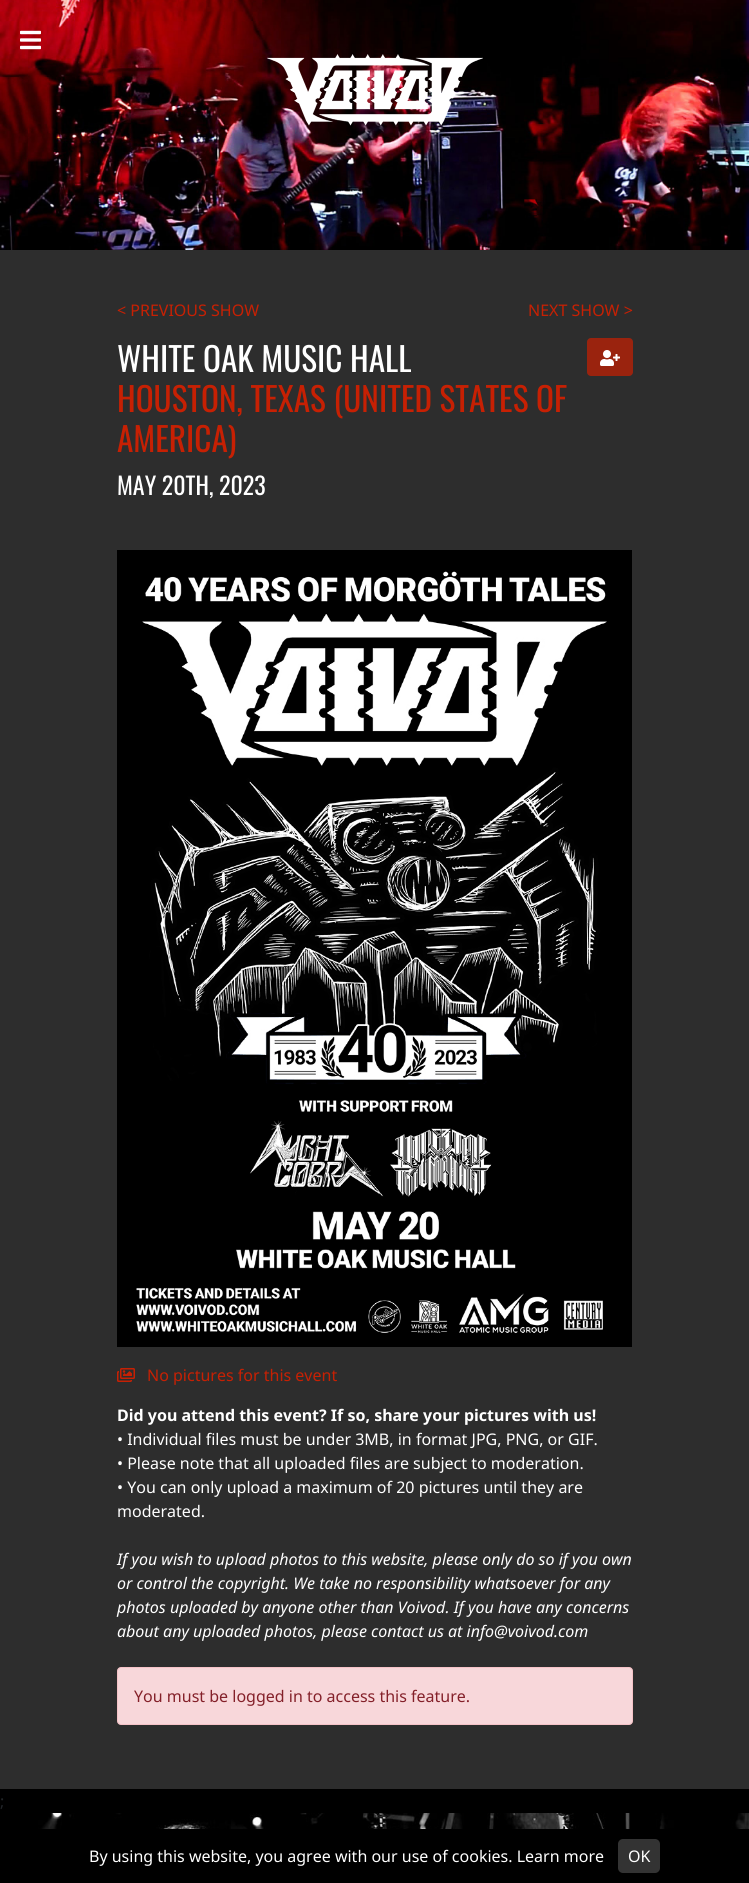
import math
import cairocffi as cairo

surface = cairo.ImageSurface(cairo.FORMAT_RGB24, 749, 1883)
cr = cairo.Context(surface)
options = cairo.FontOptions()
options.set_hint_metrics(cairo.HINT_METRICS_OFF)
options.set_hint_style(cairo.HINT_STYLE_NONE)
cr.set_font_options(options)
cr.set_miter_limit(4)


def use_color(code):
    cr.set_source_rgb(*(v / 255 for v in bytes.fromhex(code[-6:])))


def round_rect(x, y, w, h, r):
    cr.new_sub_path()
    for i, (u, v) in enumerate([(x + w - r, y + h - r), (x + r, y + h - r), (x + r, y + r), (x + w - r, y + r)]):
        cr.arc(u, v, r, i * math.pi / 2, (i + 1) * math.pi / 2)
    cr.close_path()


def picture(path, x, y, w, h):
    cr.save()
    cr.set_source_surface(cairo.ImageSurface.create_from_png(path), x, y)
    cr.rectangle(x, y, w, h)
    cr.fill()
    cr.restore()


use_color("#000000")
cr.paint()
picture("img1.png", 0, 0, 749, 250)
picture("img2.png", 20, 30, 21, 20)
picture("img3.png", 267, 54, 216, 72)
use_color("#2d2d2d")
cr.rectangle(0, 250, 749, 1539)
cr.fill()
cr.select_font_face("Noto Sans")
cr.set_font_size(16)
use_color("#c72003")
cr.move_to(117, 316)
cr.show_text("< PREVIOUS SHOW")
cr.move_to(528, 316)
cr.show_text("NEXT SHOW >")
cr.select_font_face("Oswald")
cr.set_font_size(33.25)
use_color("#ffffff")
cr.move_to(117, 372)
cr.show_text("WHITE OAK MUSIC HALL")
use_color("#9a230e")
round_rect(587, 338, 46, 38, 4)
cr.fill()
picture("img4.png", 600, 350, 20, 16)
use_color("#c72003")
cr.move_to(117, 412)
cr.show_text("HOUSTON, TEXAS (UNITED STATES OF")
cr.move_to(117, 452)
cr.show_text("AMERICA)")
cr.set_font_size(24)
use_color("#ffffff")
cr.move_to(117, 495)
cr.show_text("MAY 20TH, 2023")
picture("img5.png", 117, 550, 515, 797)
picture("img6.png", 117, 1368, 18, 14)
cr.select_font_face("Noto Sans")
cr.set_font_size(16)
use_color("#c72003")
cr.move_to(147, 1381)
cr.show_text("No pictures for this event")
cr.select_font_face("Noto Sans", cairo.FONT_SLANT_NORMAL, cairo.FONT_WEIGHT_BOLD)
use_color("#ffffff")
cr.move_to(117, 1421)
cr.show_text("Did you attend this event? If so, share your pictures with us!")
cr.select_font_face("Noto Sans")
cr.move_to(117, 1445)
cr.show_text("• Individual files must be under 3MB, in format JPG, PNG, or GIF.")
cr.move_to(117, 1469)
cr.show_text("• Please note that all uploaded files are subject to moderation.")
cr.move_to(117, 1493)
cr.show_text("• You can only upload a maximum of 20 pictures until they are")
cr.move_to(117, 1517)
cr.show_text("moderated.")
cr.select_font_face("Noto Sans", cairo.FONT_SLANT_ITALIC)
cr.move_to(117, 1565)
cr.show_text("If you wish to upload photos to this website, please only do so if you own")
cr.move_to(117, 1589)
cr.show_text("or control the copyright. We take no responsibility whatsoever for any")
cr.move_to(117, 1613)
cr.show_text("photos uploaded by anyone other than Voivod. If you have any concerns")
cr.move_to(117, 1637)
cr.show_text("about any uploaded photos, please contact us at info@voivod.com")
use_color("#f8d7da")
round_rect(117.5, 1667.5, 515, 57, 3.5)
cr.fill_preserve()
use_color("#f5c2c7")
cr.set_line_width(1)
cr.stroke()
cr.select_font_face("Noto Sans")
use_color("#842029")
cr.move_to(134, 1702)
cr.show_text("You must be logged in to access this feature.")
use_color("#212529")
cr.move_to(0, 1807)
cr.show_text(";")
picture("img7.png", 0, 1813, 749, 16)
use_color("#ffffff")
cr.move_to(89, 1862)
cr.show_text("By using this website, you agree with our use of cookies. Learn more")
use_color("#333333")
round_rect(618, 1839, 42, 34, 5)
cr.fill()
use_color("#ffffff")
cr.move_to(628, 1862)
cr.show_text("OK")
surface.write_to_png("result.png")
